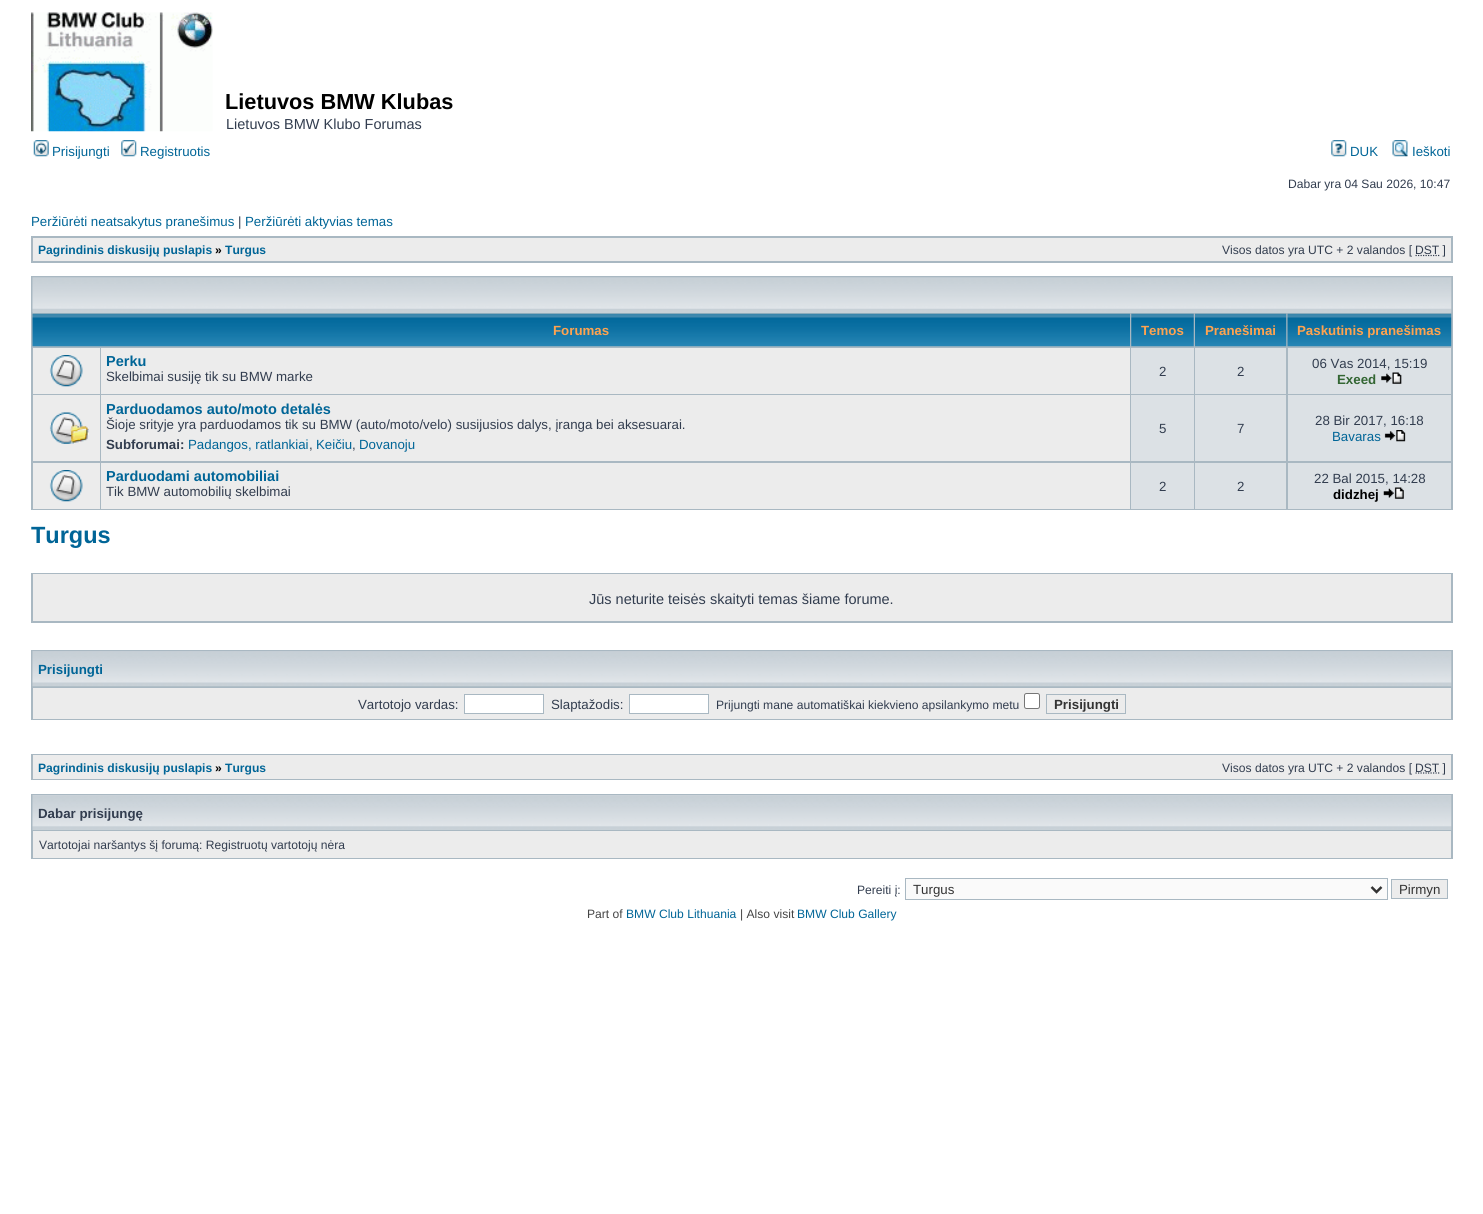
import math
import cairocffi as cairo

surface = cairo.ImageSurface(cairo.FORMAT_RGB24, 1483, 1214)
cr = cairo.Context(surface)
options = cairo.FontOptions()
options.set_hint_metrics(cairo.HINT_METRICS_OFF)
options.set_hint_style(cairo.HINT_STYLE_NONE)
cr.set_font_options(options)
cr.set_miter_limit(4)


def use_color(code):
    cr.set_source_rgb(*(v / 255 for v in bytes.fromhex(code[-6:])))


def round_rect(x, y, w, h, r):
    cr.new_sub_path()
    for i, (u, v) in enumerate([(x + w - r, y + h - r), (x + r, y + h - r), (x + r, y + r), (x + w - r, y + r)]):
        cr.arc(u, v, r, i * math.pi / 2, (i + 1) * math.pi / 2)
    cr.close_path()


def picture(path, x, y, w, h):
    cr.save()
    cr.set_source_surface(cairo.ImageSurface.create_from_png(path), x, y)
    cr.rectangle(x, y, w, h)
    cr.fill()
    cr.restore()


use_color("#ffffff")
cr.paint()
picture("img1.png", 31, 12, 182, 120)
cr.select_font_face("Liberation Sans", cairo.FONT_SLANT_NORMAL, cairo.FONT_WEIGHT_BOLD)
cr.set_font_size(21.75)
use_color("#000000")
cr.move_to(225, 109)
cr.show_text("Lietuvos BMW Klubas")
cr.select_font_face("Liberation Sans")
cr.set_font_size(14.5)
use_color("#323d4f")
cr.move_to(226, 129)
cr.show_text("Lietuvos BMW Klubo Forumas")
picture("img2.png", 33, 140, 16, 17)
cr.set_font_size(13.3)
use_color("#006597")
cr.move_to(52, 156)
cr.show_text("Prisijungti")
picture("img3.png", 121, 140, 16, 17)
cr.move_to(140, 156)
cr.show_text("Registruotis")
picture("img4.png", 1331, 140, 16, 17)
cr.move_to(1350, 156)
cr.show_text("DUK")
picture("img5.png", 1392, 140, 16, 17)
cr.move_to(1412, 156)
cr.show_text("Ieškoti")
cr.set_font_size(12.1)
use_color("#323d4f")
cr.move_to(1288, 188)
cr.show_text("Dabar yra 04 Sau 2026, 10:47")
cr.set_font_size(13.3)
use_color("#006597")
cr.move_to(31, 226)
cr.show_text("Peržiūrėti neatsakytus pranešimus")
use_color("#323d4f")
cr.move_to(238, 226)
cr.show_text("|")
use_color("#006597")
cr.move_to(245, 226)
cr.show_text("Peržiūrėti aktyvias temas")
use_color("#a9b8c2")
cr.rectangle(31, 236, 1422, 27)
cr.fill()
use_color("#ececec")
cr.rectangle(33, 238, 1418, 23)
cr.fill()
cr.select_font_face("Liberation Sans", cairo.FONT_SLANT_NORMAL, cairo.FONT_WEIGHT_BOLD)
cr.set_font_size(12.1)
use_color("#006597")
cr.move_to(38, 254)
cr.show_text("Pagrindinis diskusijų puslapis")
use_color("#000000")
cr.move_to(215, 254)
cr.show_text("»")
use_color("#006597")
cr.move_to(225, 254)
cr.show_text("Turgus")
cr.select_font_face("Liberation Sans")
use_color("#323d4f")
cr.move_to(1222, 254)
cr.show_text("Visos datos yra UTC + 2 valandos [")
cr.new_path()
cr.move_to(1415.5, 255.5)
cr.line_to(1439.5, 255.5)
cr.set_line_width(1.2)
cr.set_dash([1.25, 1.25])
cr.stroke()
cr.move_to(1415, 254)
cr.show_text("DST ]")
use_color("#a9b8c2")
cr.rectangle(31, 276, 1422, 234)
cr.fill()
use_color("#c7d0d7")
cr.rectangle(33, 312, 1418, 1)
cr.fill()
picture("img6.png", 32, 277, 1420, 36)
picture("img7.png", 32, 313, 1098, 34)
cr.select_font_face("Liberation Sans", cairo.FONT_SLANT_NORMAL, cairo.FONT_WEIGHT_BOLD)
cr.set_font_size(13.3)
use_color("#ffa34f")
cr.move_to(553, 335)
cr.show_text("Forumas")
picture("img8.png", 1131, 313, 63, 34)
cr.move_to(1141, 335)
cr.show_text("Temos")
picture("img9.png", 1195, 313, 92, 34)
cr.move_to(1205, 335)
cr.show_text("Pranešimai")
picture("img10.png", 1287, 313, 165, 34)
cr.move_to(1297, 335)
cr.show_text("Paskutinis pranešimas")
use_color("#ececec")
cr.rectangle(33, 348, 67, 46)
cr.fill()
picture("img11.png", 49, 355, 34, 32)
cr.rectangle(101, 348, 1029, 46)
cr.fill()
cr.set_font_size(14.5)
use_color("#006597")
cr.move_to(106, 366)
cr.show_text("Perku")
cr.select_font_face("Liberation Sans")
cr.set_font_size(13.3)
use_color("#323d4f")
cr.move_to(106, 381)
cr.show_text("Skelbimai susiję tik su BMW marke")
use_color("#dce1e5")
cr.rectangle(1131, 348, 63, 46)
cr.fill()
use_color("#323d4f")
cr.move_to(1159, 376)
cr.show_text("2")
use_color("#dce1e5")
cr.rectangle(1195, 348, 91, 46)
cr.fill()
use_color("#323d4f")
cr.move_to(1237, 376)
cr.show_text("2")
use_color("#dce1e5")
cr.rectangle(1288, 348, 163, 46)
cr.fill()
use_color("#323d4f")
cr.move_to(1312, 368)
cr.show_text("06 Vas 2014, 15:19")
cr.select_font_face("Liberation Sans", cairo.FONT_SLANT_NORMAL, cairo.FONT_WEIGHT_BOLD)
use_color("#336633")
cr.move_to(1337, 384)
cr.show_text("Exeed")
picture("img12.png", 1381, 372, 21, 12)
use_color("#ececec")
cr.rectangle(33, 395, 67, 66)
cr.fill()
picture("img13.png", 49, 412, 40, 32)
cr.rectangle(101, 395, 1029, 66)
cr.fill()
cr.set_font_size(14.5)
use_color("#006597")
cr.move_to(106, 414)
cr.show_text("Parduodamos auto/moto detalės")
cr.select_font_face("Liberation Sans")
cr.set_font_size(13.3)
use_color("#323d4f")
cr.move_to(106, 429)
cr.show_text("Šioje srityje yra parduodamos tik su BMW (auto/moto/velo) susijusios dalys, įranga bei aksesuarai.")
cr.select_font_face("Liberation Sans", cairo.FONT_SLANT_NORMAL, cairo.FONT_WEIGHT_BOLD)
cr.move_to(106, 449)
cr.show_text("Subforumai:")
cr.select_font_face("Liberation Sans")
use_color("#006597")
cr.move_to(188, 449)
cr.show_text("Padangos, ratlankiai")
use_color("#323d4f")
cr.move_to(309, 449)
cr.show_text(",")
use_color("#006597")
cr.move_to(316, 449)
cr.show_text("Keičiu")
use_color("#323d4f")
cr.move_to(352, 449)
cr.show_text(",")
use_color("#006597")
cr.move_to(359, 449)
cr.show_text("Dovanoju")
use_color("#dce1e5")
cr.rectangle(1131, 395, 63, 66)
cr.fill()
use_color("#323d4f")
cr.move_to(1159, 433)
cr.show_text("5")
use_color("#dce1e5")
cr.rectangle(1195, 395, 91, 66)
cr.fill()
use_color("#323d4f")
cr.move_to(1237, 433)
cr.show_text("7")
use_color("#dce1e5")
cr.rectangle(1288, 395, 163, 66)
cr.fill()
use_color("#323d4f")
cr.move_to(1315, 425)
cr.show_text("28 Bir 2017, 16:18")
use_color("#006597")
cr.move_to(1332, 441)
cr.show_text("Bavaras")
picture("img14.png", 1384, 430, 22, 12)
use_color("#ececec")
cr.rectangle(33, 463, 67, 46)
cr.fill()
picture("img11.png", 49, 470, 34, 32)
cr.rectangle(101, 463, 1029, 46)
cr.fill()
cr.select_font_face("Liberation Sans", cairo.FONT_SLANT_NORMAL, cairo.FONT_WEIGHT_BOLD)
cr.set_font_size(14.5)
use_color("#006597")
cr.move_to(106, 481)
cr.show_text("Parduodami automobiliai")
cr.select_font_face("Liberation Sans")
cr.set_font_size(13.3)
use_color("#323d4f")
cr.move_to(106, 496)
cr.show_text("Tik BMW automobilių skelbimai")
use_color("#dce1e5")
cr.rectangle(1131, 463, 63, 46)
cr.fill()
use_color("#323d4f")
cr.move_to(1159, 491)
cr.show_text("2")
use_color("#dce1e5")
cr.rectangle(1195, 463, 91, 46)
cr.fill()
use_color("#323d4f")
cr.move_to(1237, 491)
cr.show_text("2")
use_color("#dce1e5")
cr.rectangle(1288, 463, 163, 46)
cr.fill()
use_color("#323d4f")
cr.move_to(1314, 483)
cr.show_text("22 Bal 2015, 14:28")
cr.select_font_face("Liberation Sans", cairo.FONT_SLANT_NORMAL, cairo.FONT_WEIGHT_BOLD)
use_color("#000000")
cr.move_to(1333, 499)
cr.show_text("didzhej")
picture("img15.png", 1383, 487, 21, 12)
cr.set_font_size(23.5)
use_color("#006597")
cr.move_to(31, 543)
cr.show_text("Turgus")
use_color("#a9b8c2")
cr.rectangle(31, 573, 1422, 50)
cr.fill()
use_color("#ececec")
cr.rectangle(33, 574, 1418, 47)
cr.fill()
cr.select_font_face("Liberation Sans")
cr.set_font_size(14.5)
use_color("#323d4f")
cr.move_to(589, 604)
cr.show_text("Jūs neturite teisės skaityti temas šiame forume.")
use_color("#a9b8c2")
cr.rectangle(31, 650, 1422, 70)
cr.fill()
picture("img16.png", 32, 651, 1420, 36)
cr.select_font_face("Liberation Sans", cairo.FONT_SLANT_NORMAL, cairo.FONT_WEIGHT_BOLD)
cr.set_font_size(13.3)
use_color("#006597")
cr.move_to(38, 674)
cr.show_text("Prisijungti")
use_color("#ececec")
cr.rectangle(33, 688, 1418, 31)
cr.fill()
cr.select_font_face("Liberation Sans")
use_color("#323d4f")
cr.move_to(358, 709)
cr.show_text("Vartotojo vardas:")
use_color("#ffffff")
cr.rectangle(464.5, 694.5, 79, 19)
cr.fill_preserve()
use_color("#a9b8c2")
cr.set_line_width(1)
cr.set_dash([])
cr.stroke()
use_color("#323d4f")
cr.move_to(551, 709)
cr.show_text("Slaptažodis:")
use_color("#ffffff")
cr.rectangle(629.5, 694.5, 79, 19)
cr.fill_preserve()
use_color("#a9b8c2")
cr.stroke()
cr.set_font_size(12.1)
use_color("#323d4f")
cr.move_to(716, 709)
cr.show_text("Prijungti mane automatiškai kiekvieno apsilankymo metu")
use_color("#ffffff")
round_rect(1024.5, 693.5, 15, 15, 2)
cr.fill_preserve()
use_color("#767676")
cr.stroke()
cr.rectangle(1046.5, 694.5, 79, 19)
use_color("#a9b8c2")
cr.stroke()
cr.select_font_face("Liberation Sans", cairo.FONT_SLANT_NORMAL, cairo.FONT_WEIGHT_BOLD)
cr.set_font_size(13.3)
use_color("#333333")
cr.move_to(1054, 709)
cr.show_text("Prisijungti")
use_color("#a9b8c2")
cr.rectangle(31, 754, 1422, 26)
cr.fill()
use_color("#ececec")
cr.rectangle(33, 755, 1418, 24)
cr.fill()
cr.set_font_size(12.1)
use_color("#006597")
cr.move_to(38, 772)
cr.show_text("Pagrindinis diskusijų puslapis")
use_color("#000000")
cr.move_to(215, 772)
cr.show_text("»")
use_color("#006597")
cr.move_to(225, 772)
cr.show_text("Turgus")
cr.select_font_face("Liberation Sans")
use_color("#323d4f")
cr.move_to(1222, 772)
cr.show_text("Visos datos yra UTC + 2 valandos [")
cr.new_path()
cr.move_to(1415.5, 773)
cr.line_to(1439.5, 773)
cr.set_line_width(1.2)
cr.set_dash([1.25, 1.25])
cr.stroke()
cr.move_to(1415, 772)
cr.show_text("DST ]")
use_color("#a9b8c2")
cr.rectangle(31, 794, 1422, 65)
cr.fill()
picture("img17.png", 32, 795, 1420, 35)
cr.select_font_face("Liberation Sans", cairo.FONT_SLANT_NORMAL, cairo.FONT_WEIGHT_BOLD)
cr.set_font_size(13.3)
use_color("#323d4f")
cr.move_to(38, 818)
cr.show_text("Dabar prisijungę")
use_color("#ececec")
cr.rectangle(33, 831, 1418, 27)
cr.fill()
cr.select_font_face("Liberation Sans")
cr.set_font_size(12.1)
use_color("#323d4f")
cr.move_to(39, 849)
cr.show_text("Vartotojai naršantys šį forumą: Registruotų vartotojų nėra")
cr.move_to(857, 894)
cr.show_text("Pereiti į:")
use_color("#fafafa")
cr.rectangle(905.5, 878.5, 482, 21)
cr.fill_preserve()
use_color("#a9b8c2")
cr.set_line_width(1)
cr.set_dash([])
cr.stroke()
cr.new_path()
cr.move_to(1371.5, 887)
cr.line_to(1376.5, 892)
cr.line_to(1381.5, 887)
use_color("#333333")
cr.set_line_width(2.5)
cr.stroke()
cr.set_font_size(13.3)
cr.move_to(913, 894)
cr.show_text("Turgus")
use_color("#ececec")
cr.rectangle(1391.5, 879.5, 56, 19)
cr.fill_preserve()
use_color("#a9b8c2")
cr.set_line_width(1)
cr.stroke()
use_color("#333333")
cr.move_to(1399, 894)
cr.show_text("Pirmyn")
cr.set_font_size(12.1)
use_color("#444444")
cr.move_to(587, 918)
cr.show_text("Part of")
use_color("#006597")
cr.move_to(626, 918)
cr.show_text("BMW Club Lithuania")
use_color("#444444")
cr.move_to(740, 918)
cr.show_text("| Also visit")
use_color("#006597")
cr.move_to(797, 918)
cr.show_text("BMW Club Gallery")
surface.write_to_png("result.png")
